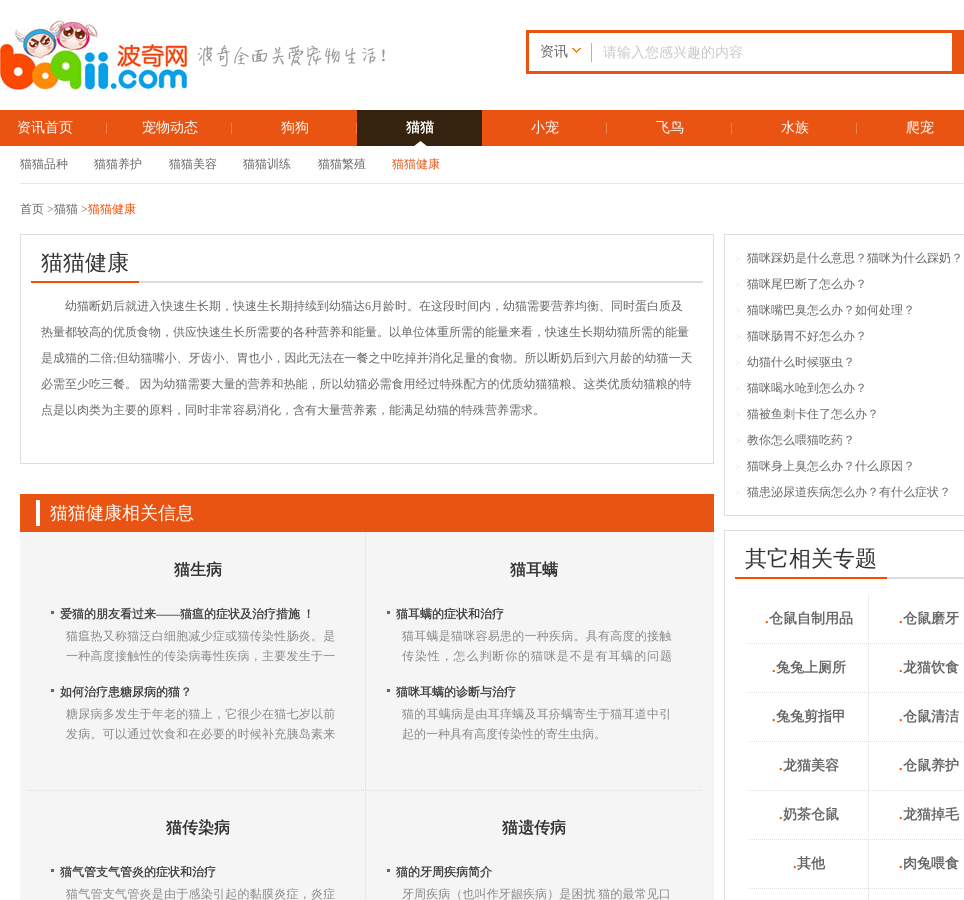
import math
import cairocffi as cairo

surface = cairo.ImageSurface(cairo.FORMAT_RGB24, 964, 900)
cr = cairo.Context(surface)
options = cairo.FontOptions()
options.set_hint_metrics(cairo.HINT_METRICS_OFF)
options.set_hint_style(cairo.HINT_STYLE_NONE)
cr.set_font_options(options)
cr.set_miter_limit(4)


def use_color(code):
    cr.set_source_rgb(*(v / 255 for v in bytes.fromhex(code[-6:])))


def spaced_text(x, y, s, letter, word):
    cr.move_to(x, y)
    for ch in s:
        cr.show_text(ch)
        cr.rel_move_to(letter + word * (ch == ' '), 0)


def picture(path, x, y, w, h):
    cr.save()
    cr.set_source_surface(cairo.ImageSurface.create_from_png(path), x, y)
    cr.rectangle(x, y, w, h)
    cr.fill()
    cr.restore()


use_color("#ffffff")
cr.paint()
picture("img1.png", 0, 20, 187, 70)
picture("img2.png", 197, 45, 188, 22)
picture("img3.png", 526, 30, 438, 44)
cr.select_font_face("WenQuanYi Zen Hei Medium")
cr.set_font_size(14)
use_color("#666666")
cr.move_to(540, 56)
cr.show_text("资讯")
use_color("#c8c8c8")
cr.move_to(603, 57)
cr.show_text("请输入您感兴趣的内容")
use_color("#ea5413")
cr.rectangle(0, 110, 357, 36)
cr.fill()
use_color("#ef7f4f")
cr.rectangle(106, 123, 1, 11)
cr.fill()
use_color("#ffffff")
cr.move_to(17, 132)
cr.show_text("资讯首页")
use_color("#ef7f4f")
cr.rectangle(231, 123, 1, 11)
cr.fill()
use_color("#ffffff")
cr.move_to(142, 132)
cr.show_text("宠物动态")
use_color("#ef7f4f")
cr.rectangle(356, 123, 1, 11)
cr.fill()
use_color("#ffffff")
cr.move_to(281, 132)
cr.show_text("狗狗")
picture("img4.png", 357, 110, 125, 36)
cr.select_font_face("WenQuanYi Zen Hei", cairo.FONT_SLANT_NORMAL, cairo.FONT_WEIGHT_BOLD)
cr.move_to(406, 132)
cr.show_text("猫猫")
use_color("#ea5413")
cr.rectangle(482, 110, 482, 36)
cr.fill()
use_color("#ef7f4f")
cr.rectangle(606, 123, 1, 11)
cr.fill()
cr.select_font_face("WenQuanYi Zen Hei Medium")
use_color("#ffffff")
cr.move_to(531, 132)
cr.show_text("小宠")
use_color("#ef7f4f")
cr.rectangle(731, 123, 1, 11)
cr.fill()
use_color("#ffffff")
cr.move_to(656, 132)
cr.show_text("飞鸟")
use_color("#ef7f4f")
cr.rectangle(856, 123, 1, 11)
cr.fill()
use_color("#ffffff")
cr.move_to(781, 132)
cr.show_text("水族")
cr.move_to(906, 132)
cr.show_text("爬宠")
use_color("#e6e6e6")
cr.rectangle(20, 183, 944, 1)
cr.fill()
cr.set_font_size(12)
use_color("#666666")
cr.move_to(20, 168)
cr.show_text("猫猫品种")
cr.move_to(94, 168)
cr.show_text("猫猫养护")
cr.move_to(169, 168)
cr.show_text("猫猫美容")
cr.move_to(243, 168)
cr.show_text("猫猫训练")
cr.move_to(318, 168)
cr.show_text("猫猫繁殖")
use_color("#ea5413")
cr.move_to(392, 168)
cr.show_text("猫猫健康")
use_color("#666666")
cr.move_to(20, 213)
cr.show_text("首页")
cr.select_font_face("Liberation Serif")
cr.move_to(47, 213)
cr.show_text(">")
cr.select_font_face("WenQuanYi Zen Hei Medium")
cr.move_to(54, 213)
cr.show_text("猫猫")
cr.select_font_face("Liberation Serif")
cr.move_to(81, 213)
cr.show_text(">")
cr.select_font_face("WenQuanYi Zen Hei Medium")
use_color("#fc4a00")
cr.move_to(88, 213)
cr.show_text("猫猫健康")
cr.rectangle(20.5, 234.5, 693, 229)
use_color("#dddddd")
cr.set_line_width(1)
cr.stroke()
cr.rectangle(139, 281, 564, 2)
cr.fill()
use_color("#fc4a00")
cr.rectangle(31, 281, 108, 2)
cr.fill()
cr.set_font_size(22)
use_color("#333333")
cr.move_to(41, 270)
cr.show_text("猫猫健康")
cr.set_font_size(12)
use_color("#666666")
cr.move_to(65, 310)
cr.show_text("幼猫断奶后就进入快速生长期，快速生长期持续到幼猫达")
cr.select_font_face("Liberation Serif")
cr.move_to(365, 310)
cr.show_text("6")
cr.select_font_face("WenQuanYi Zen Hei Medium")
cr.move_to(371, 310)
cr.show_text("月龄时。在这段时间内，幼猫需要营养均衡、同时蛋白质及")
cr.move_to(41, 336)
cr.show_text("热量都较高的优质食物，供应快速生长所需要的各种营养和能量。以单位体重所需的能量来看，快速生长期幼猫所需的能量")
cr.move_to(41, 362)
cr.show_text("是成猫的二倍 但幼猫嘴小、牙齿小、胃也小，因此无法在一餐之中吃掉并消化足量的食物。所以断奶后到六月龄的幼猫一天")
cr.select_font_face("Liberation Serif")
cr.move_to(113, 362)
cr.show_text(";")
cr.select_font_face("WenQuanYi Zen Hei Medium")
spaced_text(41, 388, "必需至少吃三餐。 因为幼猫需要大量的营养和热能，所以幼猫必需食用经过特殊配方的优质幼猫猫粮。这类优质幼猫粮的特", 0, -1)
cr.move_to(41, 414)
cr.show_text("点是以肉类为主要的原料，同时非常容易消化，含有大量营养素，能满足幼猫的特殊营养需求。")
use_color("#ea5413")
cr.rectangle(20, 494, 694, 38)
cr.fill()
use_color("#ffffff")
cr.rectangle(36, 500, 4, 26)
cr.fill()
cr.set_font_size(18)
cr.move_to(50, 519)
cr.show_text("猫猫健康相关信息")
use_color("#f5f5f5")
cr.rectangle(20, 532, 694, 368)
cr.fill()
cr.new_path()
cr.move_to(29, 790.5)
cr.line_to(366, 790.5)
use_color("#dddddd")
cr.set_dash([1, 1])
cr.stroke()
cr.select_font_face("WenQuanYi Zen Hei", cairo.FONT_SLANT_NORMAL, cairo.FONT_WEIGHT_BOLD)
cr.set_font_size(16)
use_color("#333333")
cr.move_to(174, 575)
cr.show_text("猫生病")
use_color("#666666")
cr.rectangle(51, 611, 3, 3)
cr.fill()
cr.set_font_size(12)
use_color("#444444")
cr.move_to(60, 618)
cr.show_text("爱猫的朋友看过来")
cr.select_font_face("Liberation Serif", cairo.FONT_SLANT_NORMAL, cairo.FONT_WEIGHT_BOLD)
cr.move_to(156, 618)
cr.show_text("――")
cr.select_font_face("WenQuanYi Zen Hei", cairo.FONT_SLANT_NORMAL, cairo.FONT_WEIGHT_BOLD)
spaced_text(180, 618, "猫瘟的症状及治疗措施 ！", 0, -1)
cr.select_font_face("WenQuanYi Zen Hei Medium")
use_color("#888888")
spaced_text(66, 640, "猫瘟热又称猫泛白细胞减少症或猫传染性肠炎。是", 0.25, 0)
spaced_text(66, 660, "一种高度接触性的传染病毒性疾病，主要发生于一", 0.25, 0)
use_color("#666666")
cr.rectangle(51, 689, 3, 3)
cr.fill()
cr.select_font_face("WenQuanYi Zen Hei", cairo.FONT_SLANT_NORMAL, cairo.FONT_WEIGHT_BOLD)
use_color("#444444")
cr.move_to(60, 696)
cr.show_text("如何治疗患糖尿病的猫？")
cr.select_font_face("WenQuanYi Zen Hei Medium")
use_color("#888888")
spaced_text(66, 718, "糖尿病多发生于年老的猫上，它很少在猫七岁以前", 0.25, 0)
spaced_text(66, 738, "发病。可以通过饮食和在必要的时候补充胰岛素来", 0.25, 0)
cr.new_path()
cr.move_to(365, 790.5)
cr.line_to(702, 790.5)
use_color("#dddddd")
cr.stroke()
cr.new_path()
cr.move_to(365.5, 532)
cr.line_to(365.5, 791)
cr.stroke()
cr.select_font_face("WenQuanYi Zen Hei", cairo.FONT_SLANT_NORMAL, cairo.FONT_WEIGHT_BOLD)
cr.set_font_size(16)
use_color("#333333")
cr.move_to(510, 575)
cr.show_text("猫耳螨")
use_color("#666666")
cr.rectangle(387, 611, 3, 3)
cr.fill()
cr.set_font_size(12)
use_color("#444444")
cr.move_to(396, 618)
cr.show_text("猫耳螨的症状和治疗")
cr.select_font_face("WenQuanYi Zen Hei Medium")
use_color("#888888")
spaced_text(402, 640, "猫耳螨是猫咪容易患的一种疾病。具有高度的接触", 0.25, 0)
spaced_text(402, 660, "传染性，怎么判断你的猫咪是不是有耳螨的问题", 0.9, 0)
use_color("#666666")
cr.rectangle(387, 689, 3, 3)
cr.fill()
cr.select_font_face("WenQuanYi Zen Hei", cairo.FONT_SLANT_NORMAL, cairo.FONT_WEIGHT_BOLD)
use_color("#444444")
cr.move_to(396, 696)
cr.show_text("猫咪耳螨的诊断与治疗")
cr.select_font_face("WenQuanYi Zen Hei Medium")
use_color("#888888")
spaced_text(402, 718, "猫的耳螨病是由耳痒螨及耳疥螨寄生于猫耳道中引", 0.25, 0)
cr.move_to(402, 738)
cr.show_text("起的一种具有高度传染性的寄生虫病。")
cr.select_font_face("WenQuanYi Zen Hei", cairo.FONT_SLANT_NORMAL, cairo.FONT_WEIGHT_BOLD)
cr.set_font_size(16)
use_color("#333333")
cr.move_to(166, 833)
cr.show_text("猫传染病")
use_color("#666666")
cr.rectangle(51, 869, 3, 3)
cr.fill()
cr.set_font_size(12)
use_color("#444444")
cr.move_to(60, 876)
cr.show_text("猫气管支气管炎的症状和治疗")
cr.select_font_face("WenQuanYi Zen Hei Medium")
use_color("#888888")
spaced_text(66, 898, "猫气管支气管炎是由于感染引起的黏膜炎症，炎症", 0.25, 0)
cr.new_path()
cr.move_to(365.5, 790)
cr.line_to(365.5, 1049)
use_color("#dddddd")
cr.stroke()
cr.select_font_face("WenQuanYi Zen Hei", cairo.FONT_SLANT_NORMAL, cairo.FONT_WEIGHT_BOLD)
cr.set_font_size(16)
use_color("#333333")
cr.move_to(502, 833)
cr.show_text("猫遗传病")
use_color("#666666")
cr.rectangle(387, 869, 3, 3)
cr.fill()
cr.set_font_size(12)
use_color("#444444")
cr.move_to(396, 876)
cr.show_text("猫的牙周疾病简介")
cr.select_font_face("WenQuanYi Zen Hei Medium")
use_color("#888888")
spaced_text(402, 898, "牙周疾病（也叫作牙龈疾病）是困扰 猫的最常见口", 0.1, -1)
cr.rectangle(724.5, 234.5, 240, 281)
use_color("#dddddd")
cr.set_dash([])
cr.stroke()
cr.select_font_face("Liberation Serif")
cr.set_font_size(10)
cr.move_to(735, 262)
cr.show_text(">")
cr.select_font_face("WenQuanYi Zen Hei Medium")
cr.set_font_size(12)
use_color("#666666")
cr.move_to(747, 262)
cr.show_text("猫咪踩奶是什么意思？猫咪为什么踩奶？")
cr.select_font_face("Liberation Serif")
cr.set_font_size(10)
use_color("#dddddd")
cr.move_to(735, 288)
cr.show_text(">")
cr.select_font_face("WenQuanYi Zen Hei Medium")
cr.set_font_size(12)
use_color("#666666")
cr.move_to(747, 288)
cr.show_text("猫咪尾巴断了怎么办？")
cr.select_font_face("Liberation Serif")
cr.set_font_size(10)
use_color("#dddddd")
cr.move_to(735, 314)
cr.show_text(">")
cr.select_font_face("WenQuanYi Zen Hei Medium")
cr.set_font_size(12)
use_color("#666666")
cr.move_to(747, 314)
cr.show_text("猫咪嘴巴臭怎么办？如何处理？")
cr.select_font_face("Liberation Serif")
cr.set_font_size(10)
use_color("#dddddd")
cr.move_to(735, 340)
cr.show_text(">")
cr.select_font_face("WenQuanYi Zen Hei Medium")
cr.set_font_size(12)
use_color("#666666")
cr.move_to(747, 340)
cr.show_text("猫咪肠胃不好怎么办？")
cr.select_font_face("Liberation Serif")
cr.set_font_size(10)
use_color("#dddddd")
cr.move_to(735, 366)
cr.show_text(">")
cr.select_font_face("WenQuanYi Zen Hei Medium")
cr.set_font_size(12)
use_color("#666666")
cr.move_to(747, 366)
cr.show_text("幼猫什么时候驱虫？")
cr.select_font_face("Liberation Serif")
cr.set_font_size(10)
use_color("#dddddd")
cr.move_to(735, 392)
cr.show_text(">")
cr.select_font_face("WenQuanYi Zen Hei Medium")
cr.set_font_size(12)
use_color("#666666")
cr.move_to(747, 392)
cr.show_text("猫咪喝水呛到怎么办？")
cr.select_font_face("Liberation Serif")
cr.set_font_size(10)
use_color("#dddddd")
cr.move_to(735, 418)
cr.show_text(">")
cr.select_font_face("WenQuanYi Zen Hei Medium")
cr.set_font_size(12)
use_color("#666666")
cr.move_to(747, 418)
cr.show_text("猫被鱼刺卡住了怎么办？")
cr.select_font_face("Liberation Serif")
cr.set_font_size(10)
use_color("#dddddd")
cr.move_to(735, 444)
cr.show_text(">")
cr.select_font_face("WenQuanYi Zen Hei Medium")
cr.set_font_size(12)
use_color("#666666")
cr.move_to(747, 444)
cr.show_text("教你怎么喂猫吃药？")
cr.select_font_face("Liberation Serif")
cr.set_font_size(10)
use_color("#dddddd")
cr.move_to(735, 470)
cr.show_text(">")
cr.select_font_face("WenQuanYi Zen Hei Medium")
cr.set_font_size(12)
use_color("#666666")
cr.move_to(747, 470)
cr.show_text("猫咪身上臭怎么办？什么原因？")
cr.select_font_face("Liberation Serif")
cr.set_font_size(10)
use_color("#dddddd")
cr.move_to(735, 496)
cr.show_text(">")
cr.select_font_face("WenQuanYi Zen Hei Medium")
cr.set_font_size(12)
use_color("#666666")
cr.move_to(747, 496)
cr.show_text("猫患泌尿道疾病怎么办？有什么症状？")
cr.rectangle(724.5, 530.5, 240, 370)
use_color("#dddddd")
cr.stroke()
cr.rectangle(887, 577, 77, 2)
cr.fill()
use_color("#fc4a00")
cr.rectangle(735, 577, 152, 2)
cr.fill()
cr.set_font_size(22)
use_color("#333333")
cr.move_to(745, 566)
cr.show_text("其它相关专题")
cr.new_path()
cr.move_to(748, 643.5)
cr.line_to(869, 643.5)
use_color("#dddddd")
cr.set_dash([1, 1])
cr.stroke()
cr.select_font_face("Liberation Serif", cairo.FONT_SLANT_NORMAL, cairo.FONT_WEIGHT_BOLD)
cr.set_font_size(14)
use_color("#fc4a00")
cr.move_to(765, 623)
cr.show_text(".")
cr.select_font_face("WenQuanYi Zen Hei", cairo.FONT_SLANT_NORMAL, cairo.FONT_WEIGHT_BOLD)
use_color("#666666")
cr.move_to(769, 623)
cr.show_text("仓鼠自制用品")
cr.new_path()
cr.move_to(868, 643.5)
cr.line_to(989, 643.5)
use_color("#dddddd")
cr.stroke()
cr.new_path()
cr.move_to(868.5, 595)
cr.line_to(868.5, 644)
cr.stroke()
cr.select_font_face("Liberation Serif", cairo.FONT_SLANT_NORMAL, cairo.FONT_WEIGHT_BOLD)
use_color("#fc4a00")
cr.move_to(899, 623)
cr.show_text(".")
cr.select_font_face("WenQuanYi Zen Hei", cairo.FONT_SLANT_NORMAL, cairo.FONT_WEIGHT_BOLD)
use_color("#666666")
cr.move_to(903, 623)
cr.show_text("仓鼠磨牙")
cr.new_path()
cr.move_to(748, 692.5)
cr.line_to(869, 692.5)
use_color("#dddddd")
cr.stroke()
cr.select_font_face("Liberation Serif", cairo.FONT_SLANT_NORMAL, cairo.FONT_WEIGHT_BOLD)
use_color("#fc4a00")
cr.move_to(772, 672)
cr.show_text(".")
cr.select_font_face("WenQuanYi Zen Hei", cairo.FONT_SLANT_NORMAL, cairo.FONT_WEIGHT_BOLD)
use_color("#666666")
cr.move_to(776, 672)
cr.show_text("兔兔上厕所")
cr.new_path()
cr.move_to(868, 692.5)
cr.line_to(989, 692.5)
use_color("#dddddd")
cr.stroke()
cr.new_path()
cr.move_to(868.5, 644)
cr.line_to(868.5, 693)
cr.stroke()
cr.select_font_face("Liberation Serif", cairo.FONT_SLANT_NORMAL, cairo.FONT_WEIGHT_BOLD)
use_color("#fc4a00")
cr.move_to(899, 672)
cr.show_text(".")
cr.select_font_face("WenQuanYi Zen Hei", cairo.FONT_SLANT_NORMAL, cairo.FONT_WEIGHT_BOLD)
use_color("#666666")
cr.move_to(903, 672)
cr.show_text("龙猫饮食")
cr.new_path()
cr.move_to(748, 741.5)
cr.line_to(869, 741.5)
use_color("#dddddd")
cr.stroke()
cr.select_font_face("Liberation Serif", cairo.FONT_SLANT_NORMAL, cairo.FONT_WEIGHT_BOLD)
use_color("#fc4a00")
cr.move_to(772, 721)
cr.show_text(".")
cr.select_font_face("WenQuanYi Zen Hei", cairo.FONT_SLANT_NORMAL, cairo.FONT_WEIGHT_BOLD)
use_color("#666666")
cr.move_to(776, 721)
cr.show_text("兔兔剪指甲")
cr.new_path()
cr.move_to(868, 741.5)
cr.line_to(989, 741.5)
use_color("#dddddd")
cr.stroke()
cr.new_path()
cr.move_to(868.5, 693)
cr.line_to(868.5, 742)
cr.stroke()
cr.select_font_face("Liberation Serif", cairo.FONT_SLANT_NORMAL, cairo.FONT_WEIGHT_BOLD)
use_color("#fc4a00")
cr.move_to(899, 721)
cr.show_text(".")
cr.select_font_face("WenQuanYi Zen Hei", cairo.FONT_SLANT_NORMAL, cairo.FONT_WEIGHT_BOLD)
use_color("#666666")
cr.move_to(903, 721)
cr.show_text("仓鼠清洁")
cr.new_path()
cr.move_to(748, 790.5)
cr.line_to(869, 790.5)
use_color("#dddddd")
cr.stroke()
cr.select_font_face("Liberation Serif", cairo.FONT_SLANT_NORMAL, cairo.FONT_WEIGHT_BOLD)
use_color("#fc4a00")
cr.move_to(779, 770)
cr.show_text(".")
cr.select_font_face("WenQuanYi Zen Hei", cairo.FONT_SLANT_NORMAL, cairo.FONT_WEIGHT_BOLD)
use_color("#666666")
cr.move_to(783, 770)
cr.show_text("龙猫美容")
cr.new_path()
cr.move_to(868, 790.5)
cr.line_to(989, 790.5)
use_color("#dddddd")
cr.stroke()
cr.new_path()
cr.move_to(868.5, 742)
cr.line_to(868.5, 791)
cr.stroke()
cr.select_font_face("Liberation Serif", cairo.FONT_SLANT_NORMAL, cairo.FONT_WEIGHT_BOLD)
use_color("#fc4a00")
cr.move_to(899, 770)
cr.show_text(".")
cr.select_font_face("WenQuanYi Zen Hei", cairo.FONT_SLANT_NORMAL, cairo.FONT_WEIGHT_BOLD)
use_color("#666666")
cr.move_to(903, 770)
cr.show_text("仓鼠养护")
cr.new_path()
cr.move_to(748, 839.5)
cr.line_to(869, 839.5)
use_color("#dddddd")
cr.stroke()
cr.select_font_face("Liberation Serif", cairo.FONT_SLANT_NORMAL, cairo.FONT_WEIGHT_BOLD)
use_color("#fc4a00")
cr.move_to(779, 819)
cr.show_text(".")
cr.select_font_face("WenQuanYi Zen Hei", cairo.FONT_SLANT_NORMAL, cairo.FONT_WEIGHT_BOLD)
use_color("#666666")
cr.move_to(783, 819)
cr.show_text("奶茶仓鼠")
cr.new_path()
cr.move_to(868, 839.5)
cr.line_to(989, 839.5)
use_color("#dddddd")
cr.stroke()
cr.new_path()
cr.move_to(868.5, 791)
cr.line_to(868.5, 840)
cr.stroke()
cr.select_font_face("Liberation Serif", cairo.FONT_SLANT_NORMAL, cairo.FONT_WEIGHT_BOLD)
use_color("#fc4a00")
cr.move_to(899, 819)
cr.show_text(".")
cr.select_font_face("WenQuanYi Zen Hei", cairo.FONT_SLANT_NORMAL, cairo.FONT_WEIGHT_BOLD)
use_color("#666666")
cr.move_to(903, 819)
cr.show_text("龙猫掉毛")
cr.new_path()
cr.move_to(748, 888.5)
cr.line_to(869, 888.5)
use_color("#dddddd")
cr.stroke()
cr.select_font_face("Liberation Serif", cairo.FONT_SLANT_NORMAL, cairo.FONT_WEIGHT_BOLD)
use_color("#fc4a00")
cr.move_to(793, 868)
cr.show_text(".")
cr.select_font_face("WenQuanYi Zen Hei", cairo.FONT_SLANT_NORMAL, cairo.FONT_WEIGHT_BOLD)
use_color("#666666")
cr.move_to(797, 868)
cr.show_text("其他")
cr.new_path()
cr.move_to(868, 888.5)
cr.line_to(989, 888.5)
use_color("#dddddd")
cr.stroke()
cr.new_path()
cr.move_to(868.5, 840)
cr.line_to(868.5, 889)
cr.stroke()
cr.select_font_face("Liberation Serif", cairo.FONT_SLANT_NORMAL, cairo.FONT_WEIGHT_BOLD)
use_color("#fc4a00")
cr.move_to(899, 868)
cr.show_text(".")
cr.select_font_face("WenQuanYi Zen Hei", cairo.FONT_SLANT_NORMAL, cairo.FONT_WEIGHT_BOLD)
use_color("#666666")
cr.move_to(903, 868)
cr.show_text("肉兔喂食")
cr.new_path()
cr.move_to(868.5, 889)
cr.line_to(868.5, 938)
use_color("#dddddd")
cr.stroke()
surface.write_to_png("result.png")
